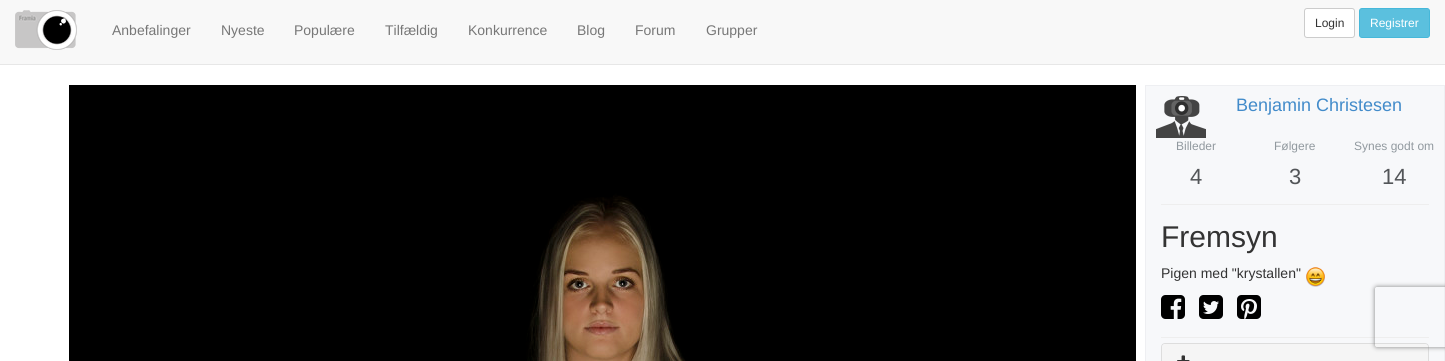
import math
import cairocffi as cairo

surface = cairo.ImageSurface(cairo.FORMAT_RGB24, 1445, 361)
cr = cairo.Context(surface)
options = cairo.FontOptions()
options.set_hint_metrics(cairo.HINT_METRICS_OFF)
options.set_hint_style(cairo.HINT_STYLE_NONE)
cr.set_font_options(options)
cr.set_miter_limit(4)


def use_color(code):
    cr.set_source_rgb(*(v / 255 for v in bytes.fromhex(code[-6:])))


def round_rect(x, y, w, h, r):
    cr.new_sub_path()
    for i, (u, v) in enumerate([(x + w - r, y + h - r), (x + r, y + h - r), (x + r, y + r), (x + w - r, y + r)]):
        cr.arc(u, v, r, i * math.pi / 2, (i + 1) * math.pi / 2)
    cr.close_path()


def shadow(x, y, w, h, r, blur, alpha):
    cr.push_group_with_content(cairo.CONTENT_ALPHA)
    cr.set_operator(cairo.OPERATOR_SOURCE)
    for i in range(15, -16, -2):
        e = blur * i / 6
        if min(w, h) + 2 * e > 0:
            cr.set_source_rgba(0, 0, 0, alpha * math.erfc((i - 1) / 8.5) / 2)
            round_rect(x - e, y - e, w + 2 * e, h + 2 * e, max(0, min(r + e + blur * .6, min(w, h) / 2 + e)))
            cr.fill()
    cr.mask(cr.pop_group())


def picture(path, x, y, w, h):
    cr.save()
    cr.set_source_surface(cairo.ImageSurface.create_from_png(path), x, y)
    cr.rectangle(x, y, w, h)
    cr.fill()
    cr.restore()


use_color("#ffffff")
cr.paint()
use_color("#f8f8f8")
cr.rectangle(0, 0, 1445, 64)
cr.fill()
use_color("#e7e7e7")
cr.rectangle(0, 64, 1445, 1)
cr.fill()
picture("img1.png", 15, 10, 62, 40)
cr.select_font_face("Liberation Sans")
cr.set_font_size(14)
use_color("#777777")
cr.move_to(112, 35)
cr.show_text("Anbefalinger")
cr.move_to(221, 35)
cr.show_text("Nyeste")
cr.move_to(294, 35)
cr.show_text("Populære")
cr.move_to(385, 35)
cr.show_text("Tilfældig")
cr.move_to(468, 35)
cr.show_text("Konkurrence")
cr.move_to(577, 35)
cr.show_text("Blog")
cr.move_to(635, 35)
cr.show_text("Forum")
cr.move_to(706, 35)
cr.show_text("Grupper")
use_color("#ffffff")
round_rect(1304.5, 8.5, 50, 29, 2.5)
cr.fill_preserve()
use_color("#cccccc")
cr.set_line_width(1)
cr.stroke()
cr.set_font_size(12)
use_color("#333333")
cr.move_to(1315, 27)
cr.show_text("Login")
use_color("#5bc0de")
round_rect(1359.5, 8.5, 70, 29, 2.5)
cr.fill_preserve()
use_color("#46b8da")
cr.stroke()
use_color("#ffffff")
cr.move_to(1370, 27)
cr.show_text("Registrer")
picture("img2.png", 69, 85, 1067, 276)
use_color("#f7f8fa")
cr.rectangle(1145.5, 85.5, 299, 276)
cr.fill_preserve()
use_color("#eeeff2")
cr.stroke()
picture("img3.png", 1156, 96, 50, 42)
cr.set_font_size(18)
use_color("#428bca")
cr.move_to(1236, 111)
cr.show_text("Benjamin Christesen")
cr.set_font_size(12)
use_color("#91999f")
cr.move_to(1176, 150)
cr.show_text("Billeder")
cr.set_font_size(22)
use_color("#525558")
cr.move_to(1190, 184)
cr.show_text("4")
cr.set_font_size(12)
use_color("#91999f")
cr.move_to(1274, 150)
cr.show_text("Følgere")
cr.set_font_size(22)
use_color("#525558")
cr.move_to(1289, 184)
cr.show_text("3")
cr.set_font_size(12)
use_color("#91999f")
cr.move_to(1354, 150)
cr.show_text("Synes godt om")
cr.set_font_size(22)
use_color("#525558")
cr.move_to(1382, 184)
cr.show_text("14")
use_color("#eeeeee")
cr.rectangle(1161, 204, 268, 1)
cr.fill()
cr.set_font_size(30)
use_color("#333333")
cr.move_to(1161, 247)
cr.show_text("Fremsyn")
cr.set_font_size(14)
cr.move_to(1161, 278)
cr.show_text("Pigen med \"krystallen\"")
picture("img4.png", 1306, 267, 19, 20)
picture("img5.png", 1161, 295, 24, 24)
picture("img6.png", 1199, 295, 24, 24)
picture("img7.png", 1237, 295, 24, 24)
use_color("#eeeeee")
cr.rectangle(1161, 337, 268, 1)
cr.fill()
round_rect(1161.5, 343.5, 267, 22, 3.5)
use_color("#dddddd")
cr.stroke()
use_color("#f5f5f5")
cr.new_path()
cr.move_to(1165, 344)
cr.line_to(1425, 344)
cr.curve_to(1426.5, 344, 1428, 345.5, 1428, 347)
cr.line_to(1428, 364)
cr.line_to(1162, 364)
cr.line_to(1162, 347)
cr.curve_to(1162, 345.5, 1163.5, 344, 1165, 344)
cr.close_path()
cr.fill()
picture("img8.png", 1177, 355, 13, 6)
cr.save()
cr.set_fill_rule(cairo.FILL_RULE_EVEN_ODD)
cr.new_path()
cr.move_to(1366, 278)
cr.line_to(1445, 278)
cr.line_to(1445, 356)
cr.line_to(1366, 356)
cr.close_path()
cr.move_to(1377, 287)
cr.line_to(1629, 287)
cr.curve_to(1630, 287, 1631, 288, 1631, 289)
cr.line_to(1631, 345)
cr.curve_to(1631, 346, 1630, 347, 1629, 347)
cr.line_to(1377, 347)
cr.curve_to(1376, 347, 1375, 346, 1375, 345)
cr.line_to(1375, 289)
cr.curve_to(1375, 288, 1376, 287, 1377, 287)
cr.close_path()
cr.clip()
use_color("#808080")
shadow(1375, 287, 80, 60, 2, 2.5, 1)
cr.restore()
surface.write_to_png("result.png")
